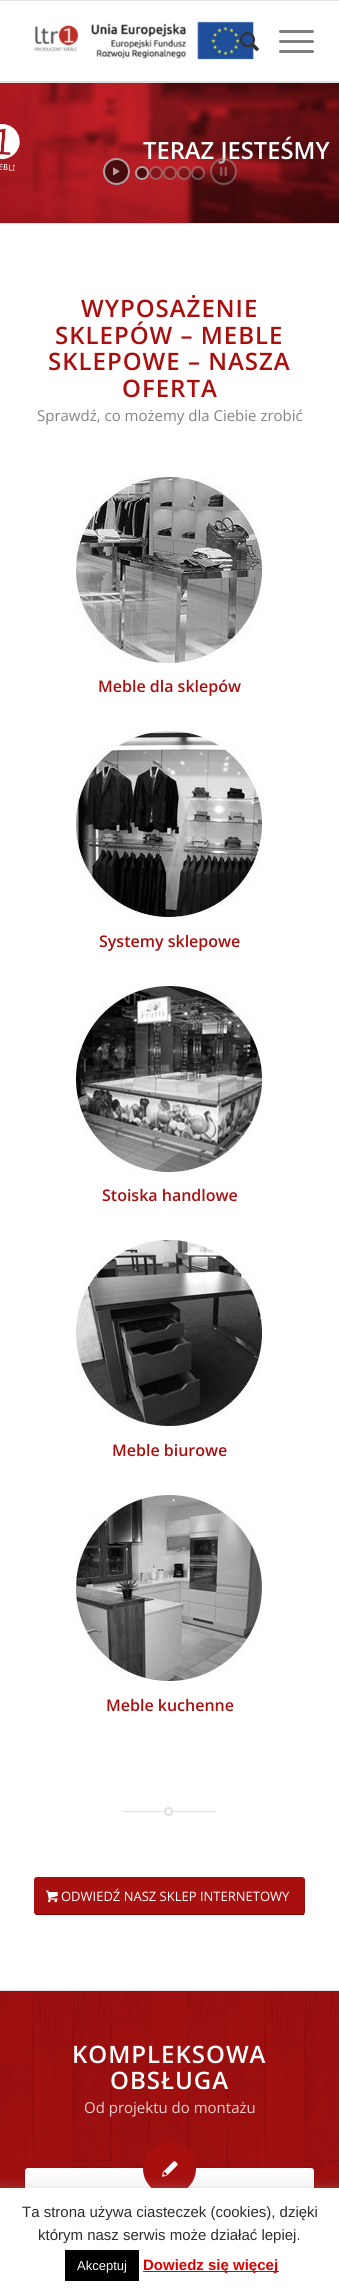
import math
import cairocffi as cairo

surface = cairo.ImageSurface(cairo.FORMAT_RGB24, 339, 2293)
cr = cairo.Context(surface)
options = cairo.FontOptions()
options.set_hint_metrics(cairo.HINT_METRICS_OFF)
options.set_hint_style(cairo.HINT_STYLE_NONE)
cr.set_font_options(options)
cr.set_miter_limit(4)


def use_color(code):
    cr.set_source_rgb(*(v / 255 for v in bytes.fromhex(code[-6:])))


def spaced_text(x, y, s, letter, word):
    cr.move_to(x, y)
    for ch in s:
        cr.show_text(ch)
        cr.rel_move_to(letter + word * (ch == ' '), 0)


def round_rect(x, y, w, h, r):
    cr.new_sub_path()
    for i, (u, v) in enumerate([(x + w - r, y + h - r), (x + r, y + h - r), (x + r, y + r), (x + w - r, y + r)]):
        cr.arc(u, v, r, i * math.pi / 2, (i + 1) * math.pi / 2)
    cr.close_path()


def shadow(x, y, w, h, r, blur, alpha):
    cr.push_group_with_content(cairo.CONTENT_ALPHA)
    cr.set_operator(cairo.OPERATOR_SOURCE)
    for i in range(15, -16, -2):
        e = blur * i / 6
        if min(w, h) + 2 * e > 0:
            cr.set_source_rgba(0, 0, 0, alpha * math.erfc((i - 1) / 8.5) / 2)
            round_rect(x - e, y - e, w + 2 * e, h + 2 * e, max(0, min(r + e + blur * .6, min(w, h) / 2 + e)))
            cr.fill()
    cr.mask(cr.pop_group())


def picture(path, x, y, w, h):
    cr.save()
    cr.set_source_surface(cairo.ImageSurface.create_from_png(path), x, y)
    cr.rectangle(x, y, w, h)
    cr.fill()
    cr.restore()


use_color("#ffffff")
cr.paint()
use_color("#e1e1e1")
cr.rectangle(0, 0, 339, 1)
cr.fill()
picture("img1.png", 34, 21, 220, 39)
picture("img2.png", 240, 32, 19, 20)
use_color("#808080")
round_rect(279, 40, 35, 3, 1.5)
cr.fill()
round_rect(279, 30, 35, 3, 1.5)
cr.fill()
round_rect(279, 50, 35, 3, 1.5)
cr.fill()
use_color("#e1e1e1")
cr.rectangle(0, 81, 339, 2)
cr.fill()
picture("img3.png", 0, 83, 339, 140)
picture("img4.png", 0, 124, 20, 47)
cr.select_font_face("Open Sans SemiBold")
cr.set_font_size(23.75)
use_color("#ffffff")
cr.move_to(143, 159)
cr.show_text("TERAZ JESTEŚMY")
cr.set_source_rgba(0, 0, 0, 0.6)
cr.new_path()
cr.arc(116.5, 171.5, 13.5, 0, 2 * math.pi)
cr.fill()
cr.arc(116.5, 171.5, 12.5, 0, 2 * math.pi)
cr.set_source_rgba(1, 1, 1, 0.6)
cr.stroke()
picture("img5.png", 113, 167, 7, 9)
cr.set_source_rgba(0, 0, 0, 0.6)
cr.arc(142, 173, 7, 0, 2 * math.pi)
cr.fill()
cr.arc(142, 173, 6, 0, 2 * math.pi)
cr.set_source_rgba(1, 1, 1, 0.6)
cr.stroke()
cr.set_source_rgba(0, 0, 0, 0.3)
cr.arc(156, 173, 7, 0, 2 * math.pi)
cr.fill()
cr.arc(156, 173, 6, 0, 2 * math.pi)
cr.set_source_rgba(1, 1, 1, 0.3)
cr.stroke()
cr.set_source_rgba(0, 0, 0, 0.3)
cr.arc(170, 173, 7, 0, 2 * math.pi)
cr.fill()
cr.arc(170, 173, 6, 0, 2 * math.pi)
cr.set_source_rgba(1, 1, 1, 0.3)
cr.stroke()
cr.set_source_rgba(0, 0, 0, 0.3)
cr.arc(184, 173, 7, 0, 2 * math.pi)
cr.fill()
cr.arc(184, 173, 6, 0, 2 * math.pi)
cr.set_source_rgba(1, 1, 1, 0.3)
cr.stroke()
cr.set_source_rgba(0, 0, 0, 0.3)
cr.arc(198, 173, 7, 0, 2 * math.pi)
cr.fill()
cr.arc(198, 173, 6, 0, 2 * math.pi)
cr.set_source_rgba(1, 1, 1, 0.3)
cr.stroke()
cr.set_source_rgba(0, 0, 0, 0.3)
cr.arc(223.5, 171.5, 13.5, 0, 2 * math.pi)
cr.fill()
cr.arc(223.5, 171.5, 12.5, 0, 2 * math.pi)
cr.set_source_rgba(1, 1, 1, 0.3)
cr.stroke()
picture("img6.png", 220, 167, 7, 9)
use_color("#e1e1e1")
cr.rectangle(0, 223, 339, 1)
cr.fill()
cr.set_font_size(24)
use_color("#a81010")
spaced_text(81, 317, "WYPOSAŻENIE", 1, 0)
spaced_text(55, 344, "SKLEPÓW – MEBLE", 1, 0)
spaced_text(48, 370, "SKLEPOWE – NASZA", 1, 0)
spaced_text(122, 397, "OFERTA", 1, 0)
cr.select_font_face("Open Sans")
cr.set_font_size(15)
use_color("#838383")
cr.move_to(37, 421)
cr.show_text("Sprawdź, co możemy dla Ciebie zrobić")
picture("img7.png", 76, 477, 186, 186)
cr.select_font_face("Open Sans SemiBold")
cr.set_font_size(16)
use_color("#a81010")
cr.move_to(98, 692)
cr.show_text("Meble dla sklepów")
picture("img8.png", 76, 731, 186, 186)
cr.move_to(99, 947)
cr.show_text("Systemy sklepowe")
picture("img9.png", 76, 986, 186, 186)
cr.move_to(102, 1201)
cr.show_text("Stoiska handlowe")
picture("img10.png", 76, 1240, 186, 186)
cr.move_to(112, 1456)
cr.show_text("Meble biurowe")
picture("img11.png", 76, 1495, 186, 186)
cr.move_to(106, 1711)
cr.show_text("Meble kuchenne")
use_color("#e1e1e1")
cr.rectangle(123, 1811, 93, 1)
cr.fill()
use_color("#ffffff")
cr.arc(168.5, 1811.5, 3.5, 0, 2 * math.pi)
cr.fill_preserve()
use_color("#e1e1e1")
cr.stroke()
use_color("#a81010")
round_rect(34, 1877, 271, 38, 3)
cr.fill()
use_color("#860000")
cr.rectangle(36, 1914, 268, 1)
cr.fill()
picture("img12.png", 46, 1890, 12, 13)
cr.select_font_face("Open Sans")
cr.set_font_size(13)
use_color("#ffffff")
cr.move_to(61, 1901)
cr.show_text("ODWIEDŹ NASZ SKLEP INTERNETOWY")
use_color("#a81010")
cr.rectangle(0, 1991, 339, 197)
cr.fill()
picture("img13.png", 0, 1991, 339, 197)
use_color("#e1e1e1")
cr.rectangle(0, 1990, 339, 1)
cr.fill()
cr.select_font_face("Open Sans SemiBold")
cr.set_font_size(24)
use_color("#ffffff")
spaced_text(72, 2063, "KOMPLEKSOWA", 1, 0)
spaced_text(110, 2089, "OBSŁUGA", 1, 0)
cr.select_font_face("Open Sans")
cr.set_font_size(15)
use_color("#ebcfcf")
cr.move_to(84, 2113)
cr.show_text("Od projektu do montażu")
use_color("#000000")
shadow(25, 2168, 289, 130, 3, 0.5, 0.3)
use_color("#fcfcfc")
round_rect(25, 2168, 289, 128, 3)
cr.fill()
use_color("#a81010")
cr.arc(169.5, 2168.5, 26.5, 0, 2 * math.pi)
cr.fill()
picture("img14.png", 162, 2161, 16, 16)
use_color("#acabab")
shadow(0, 2187, 339, 105, 0, 5, 0.3)
use_color("#ffffff")
cr.rectangle(0, 2188, 339, 105)
cr.fill()
cr.select_font_face("Liberation Sans")
use_color("#2d2d2d")
cr.move_to(22, 2217)
cr.show_text("Ta strona używa ciasteczek (cookies), dzięki")
cr.move_to(38, 2240)
cr.show_text("którym nasz serwis może działać lepiej.")
use_color("#000000")
cr.rectangle(65, 2250, 74, 31)
cr.fill()
cr.set_font_size(13)
use_color("#ffffff")
cr.move_to(77, 2270)
cr.show_text("Akceptuj")
use_color("#dd0000")
cr.rectangle(143, 2271, 136, 1)
cr.fill()
cr.select_font_face("Liberation Sans", cairo.FONT_SLANT_NORMAL, cairo.FONT_WEIGHT_BOLD)
cr.set_font_size(15)
cr.move_to(143, 2270)
cr.show_text("Dowiedz się więcej")
surface.write_to_png("result.png")
